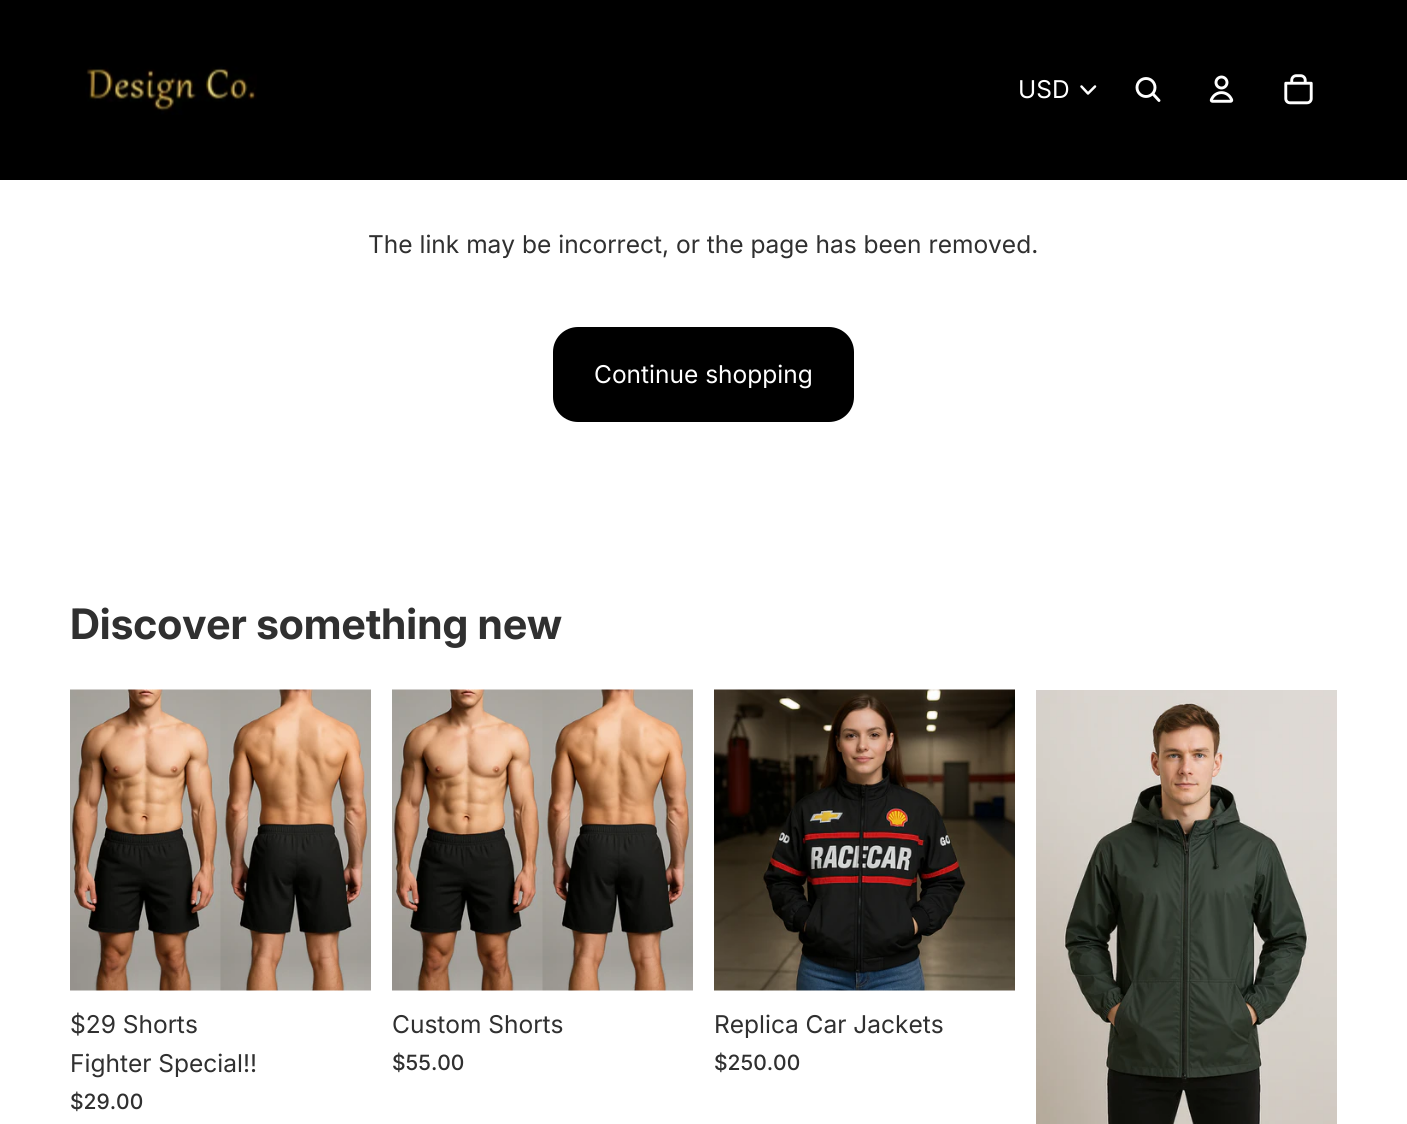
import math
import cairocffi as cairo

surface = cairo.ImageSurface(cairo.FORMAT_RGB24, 1407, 1124)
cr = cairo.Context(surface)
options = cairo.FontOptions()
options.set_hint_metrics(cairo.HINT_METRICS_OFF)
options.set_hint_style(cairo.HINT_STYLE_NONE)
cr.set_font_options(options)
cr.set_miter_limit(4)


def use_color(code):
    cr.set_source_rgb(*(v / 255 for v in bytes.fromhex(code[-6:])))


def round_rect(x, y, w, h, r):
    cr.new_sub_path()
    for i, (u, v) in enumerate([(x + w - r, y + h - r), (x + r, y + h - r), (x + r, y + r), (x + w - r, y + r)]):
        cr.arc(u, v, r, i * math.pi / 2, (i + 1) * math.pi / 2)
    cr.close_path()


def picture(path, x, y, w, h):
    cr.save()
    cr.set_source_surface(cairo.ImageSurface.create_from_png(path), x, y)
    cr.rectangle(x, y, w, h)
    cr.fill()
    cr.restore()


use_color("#ffffff")
cr.paint()
use_color("#000000")
cr.rectangle(0, 0, 1407, 180)
cr.fill()
picture("img1.png", 85, 66, 172, 49)
cr.select_font_face("Inter")
cr.set_font_size(24.5)
use_color("#ffffff")
cr.move_to(1018, 98)
cr.show_text("USD")
cr.new_path()
cr.move_to(1095, 86.5)
cr.line_to(1088, 93.5)
cr.line_to(1081.5, 86.5)
cr.set_line_width(2.5)
cr.set_line_cap(cairo.LINE_CAP_ROUND)
cr.set_line_join(cairo.LINE_JOIN_ROUND)
cr.stroke()
cr.arc(1146, 87.5, 9, 0, 2 * math.pi)
cr.set_line_width(2.9)
cr.set_line_cap(cairo.LINE_CAP_BUTT)
cr.set_line_join(cairo.LINE_JOIN_MITER)
cr.stroke()
cr.new_path()
cr.move_to(1153, 94)
cr.line_to(1159, 100.5)
cr.set_line_cap(cairo.LINE_CAP_ROUND)
cr.set_line_join(cairo.LINE_JOIN_ROUND)
cr.stroke()
picture("img2.png", 1209, 75, 25, 28)
picture("img3.png", 1284, 74, 29, 31)
use_color("#303030")
cr.move_to(368, 253)
cr.show_text("The link may be incorrect, or the page has been removed.")
use_color("#000000")
round_rect(553, 327, 301, 95, 25)
cr.fill()
use_color("#ffffff")
cr.move_to(594, 383)
cr.show_text("Continue shopping")
cr.select_font_face("Inter", cairo.FONT_SLANT_NORMAL, cairo.FONT_WEIGHT_BOLD)
cr.set_font_size(42)
use_color("#303030")
cr.move_to(70, 639)
cr.show_text("Discover something new")
picture("img4.png", 70, 689, 301, 302)
cr.select_font_face("Inter")
cr.set_font_size(24.5)
cr.move_to(70, 1033)
cr.show_text("$29 Shorts")
cr.move_to(70, 1072)
cr.show_text("Fighter Special!!")
cr.select_font_face("Inter Medium")
cr.set_font_size(21)
cr.move_to(70, 1109)
cr.show_text("$29.00")
picture("img5.png", 392, 689, 301, 302)
cr.select_font_face("Inter")
cr.set_font_size(24.5)
cr.move_to(392, 1033)
cr.show_text("Custom Shorts")
cr.select_font_face("Inter Medium")
cr.set_font_size(21)
cr.move_to(392, 1070)
cr.show_text("$55.00")
picture("img6.png", 714, 689, 301, 302)
cr.select_font_face("Inter")
cr.set_font_size(24.5)
cr.move_to(714, 1033)
cr.show_text("Replica Car Jackets")
cr.select_font_face("Inter Medium")
cr.set_font_size(21)
cr.move_to(714, 1070)
cr.show_text("$250.00")
picture("img7.png", 1036, 690, 301, 434)
surface.write_to_png("result.png")
